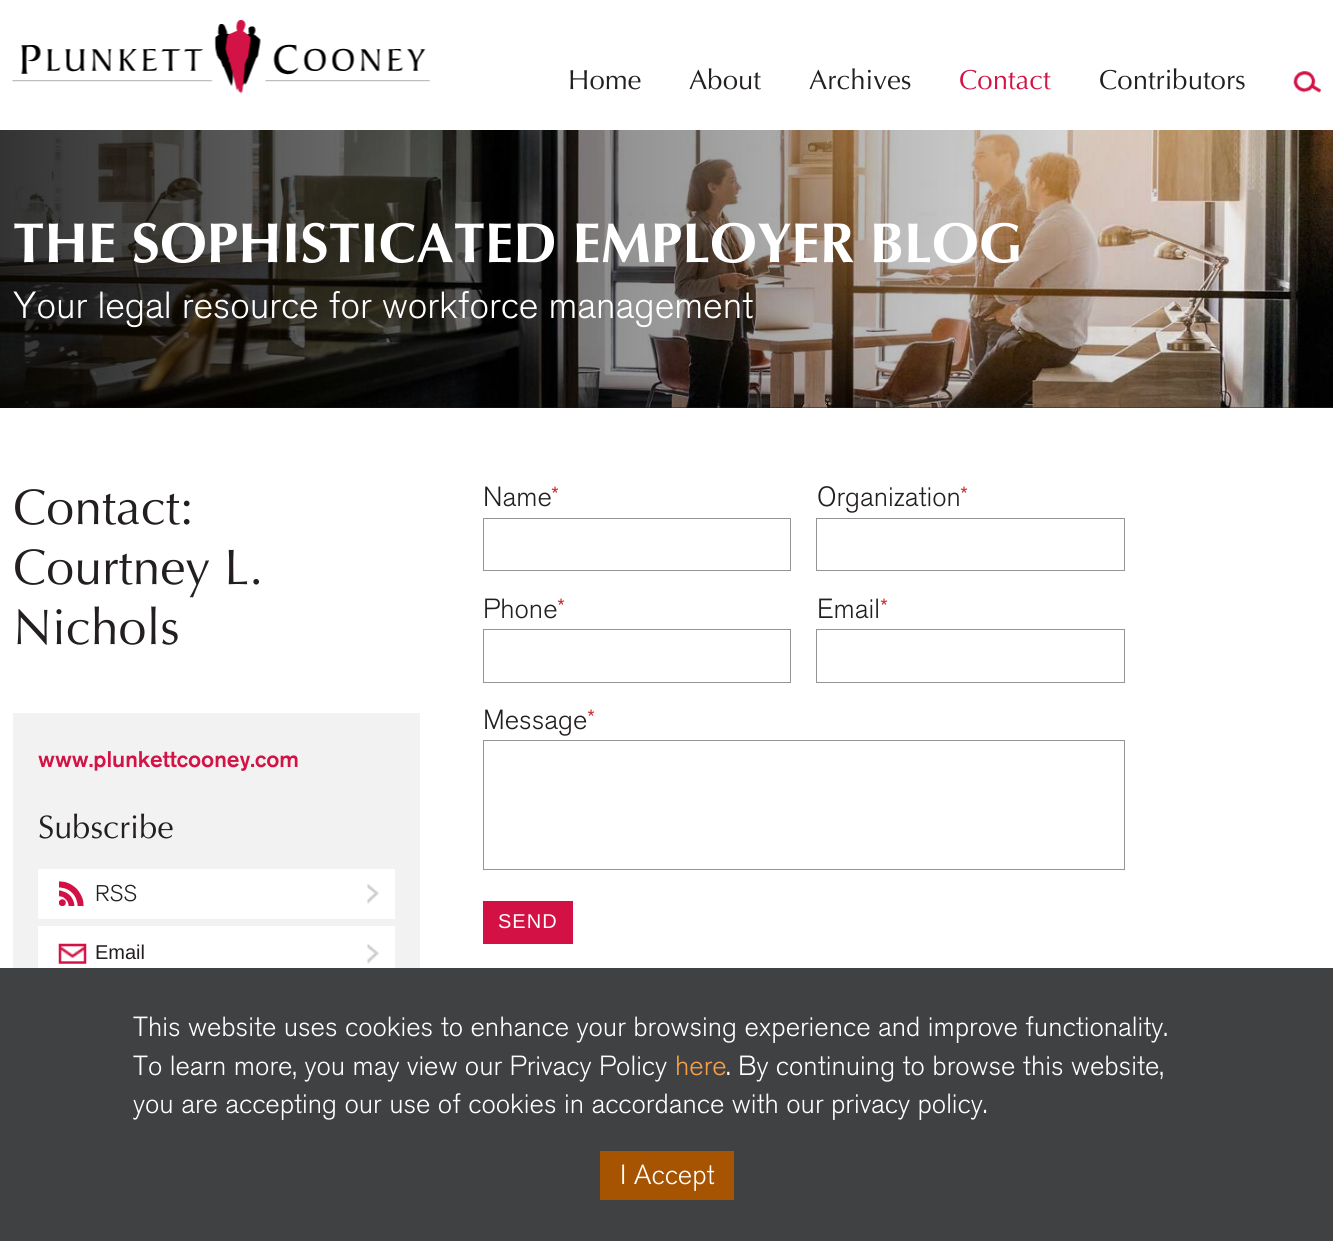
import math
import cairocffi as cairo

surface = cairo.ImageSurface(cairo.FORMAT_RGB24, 1333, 1241)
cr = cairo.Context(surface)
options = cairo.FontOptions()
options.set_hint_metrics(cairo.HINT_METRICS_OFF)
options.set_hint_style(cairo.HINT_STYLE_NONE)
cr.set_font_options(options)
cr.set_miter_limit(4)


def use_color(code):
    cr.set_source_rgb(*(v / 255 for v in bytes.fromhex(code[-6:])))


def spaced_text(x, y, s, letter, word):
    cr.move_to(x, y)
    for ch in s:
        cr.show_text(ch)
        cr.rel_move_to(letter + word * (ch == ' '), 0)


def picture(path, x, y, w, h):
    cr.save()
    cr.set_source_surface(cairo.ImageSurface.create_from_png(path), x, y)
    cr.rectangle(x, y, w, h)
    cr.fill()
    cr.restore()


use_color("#ffffff")
cr.paint()
picture("img1.png", 12, 20, 419, 74)
cr.select_font_face("Optima")
cr.set_font_size(27.5)
use_color("#231f20")
cr.move_to(568, 89)
cr.show_text("Home")
cr.move_to(689, 89)
cr.show_text("About")
cr.move_to(809, 89)
cr.show_text("Archives")
use_color("#d31245")
cr.move_to(959, 89)
cr.show_text("Contact")
use_color("#231f20")
cr.move_to(1099, 89)
cr.show_text("Contributors")
picture("img2.png", 1293, 71, 29, 22)
use_color("#322e2f")
cr.rectangle(0, 407, 1333, 1)
cr.fill()
picture("img3.png", 0, 130, 1333, 278)
gradient = cairo.LinearGradient(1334, 269, 0, 269)
gradient.add_color_stop_rgba(0, 0, 0, 0, 0)
gradient.add_color_stop_rgba(1, 0, 0, 0, 0.8)
cr.set_source(gradient)
cr.rectangle(0, 130, 1298, 278)
cr.fill()
cr.select_font_face("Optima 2")
cr.set_font_size(56.25)
use_color("#ffffff")
cr.move_to(13, 262)
cr.show_text("THE SOPHISTICATED EMPLOYER BLOG")
cr.select_font_face("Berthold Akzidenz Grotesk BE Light")
cr.set_font_size(37.5)
cr.move_to(13, 318)
cr.show_text("Your legal resource for workforce management")
cr.select_font_face("Optima")
cr.set_font_size(50)
use_color("#231f20")
cr.move_to(13, 524)
cr.show_text("Contact:")
cr.move_to(13, 584)
cr.show_text("Courtney L.")
cr.move_to(13, 644)
cr.show_text("Nichols")
cr.select_font_face("Berthold Akzidenz Grotesk BE Light")
cr.set_font_size(27.5)
cr.move_to(483, 506)
cr.show_text("Name")
use_color("#cc3333")
cr.move_to(551, 506)
cr.show_text("*")
cr.rectangle(483.5, 518.5, 307, 52)
use_color("#949494")
cr.set_line_width(1)
cr.stroke()
use_color("#231f20")
cr.move_to(817, 506)
cr.show_text("Organization")
use_color("#cc3333")
cr.move_to(960, 506)
cr.show_text("*")
cr.rectangle(816.5, 518.5, 308, 52)
use_color("#949494")
cr.stroke()
use_color("#231f20")
cr.move_to(483, 618)
cr.show_text("Phone")
use_color("#cc3333")
cr.move_to(557, 618)
cr.show_text("*")
cr.rectangle(483.5, 629.5, 307, 53)
use_color("#949494")
cr.stroke()
use_color("#231f20")
cr.move_to(817, 618)
cr.show_text("Email")
use_color("#cc3333")
cr.move_to(880, 618)
cr.show_text("*")
cr.rectangle(816.5, 629.5, 308, 53)
use_color("#949494")
cr.stroke()
use_color("#231f20")
cr.move_to(483, 729)
cr.show_text("Message")
use_color("#cc3333")
cr.move_to(587, 729)
cr.show_text("*")
cr.rectangle(483.5, 740.5, 641, 129)
use_color("#949494")
cr.stroke()
use_color("#d31145")
cr.rectangle(483, 901, 90, 43)
cr.fill()
cr.select_font_face("Liberation Sans")
cr.set_font_size(20)
use_color("#ffffff")
spaced_text(498, 928, "SEND", 1, 0)
use_color("#f2f2f2")
cr.rectangle(13, 713, 407, 255)
cr.fill()
cr.select_font_face("Berthold Akzidenz Grotesk BE Medium")
cr.set_font_size(22.5)
use_color("#d31245")
cr.move_to(38, 767)
cr.show_text("www.plunkettcooney.com")
cr.select_font_face("Optima")
cr.set_font_size(32.5)
use_color("#231f20")
cr.move_to(38, 838)
cr.show_text("Subscribe")
use_color("#ffffff")
cr.rectangle(38, 869, 357, 50)
cr.fill()
picture("img4.png", 59, 881, 320, 25)
cr.select_font_face("Berthold Akzidenz Grotesk BE Light")
cr.set_font_size(22.5)
use_color("#231f20")
cr.move_to(95, 901)
cr.show_text("RSS")
use_color("#ffffff")
cr.rectangle(38, 926, 357, 42)
cr.fill()
picture("img5.png", 367, 943, 12, 21)
picture("img6.png", 58, 943, 29, 21)
cr.select_font_face("Liberation Sans")
cr.set_font_size(20)
use_color("#231f20")
cr.move_to(95, 959)
cr.show_text("Email")
use_color("#404143")
cr.rectangle(0, 968, 1333, 273)
cr.fill()
cr.select_font_face("Berthold Akzidenz Grotesk BE Light")
cr.set_font_size(27.5)
use_color("#ffffff")
cr.move_to(133, 1036)
cr.show_text("This website uses cookies to enhance your browsing experience and improve functionality.")
cr.move_to(133, 1075)
cr.show_text("To learn more, you may view our Privacy Policy")
use_color("#f99f46")
cr.move_to(675, 1075)
cr.show_text("here")
use_color("#ffffff")
cr.move_to(726, 1075)
cr.show_text(". By continuing to browse this website,")
cr.move_to(133, 1113)
cr.show_text("you are accepting our use of cookies in accordance with our privacy policy.")
use_color("#a75402")
cr.rectangle(600, 1151, 134, 49)
cr.fill()
use_color("#ffffff")
cr.move_to(620, 1184)
cr.show_text("I Accept")
surface.write_to_png("result.png")
